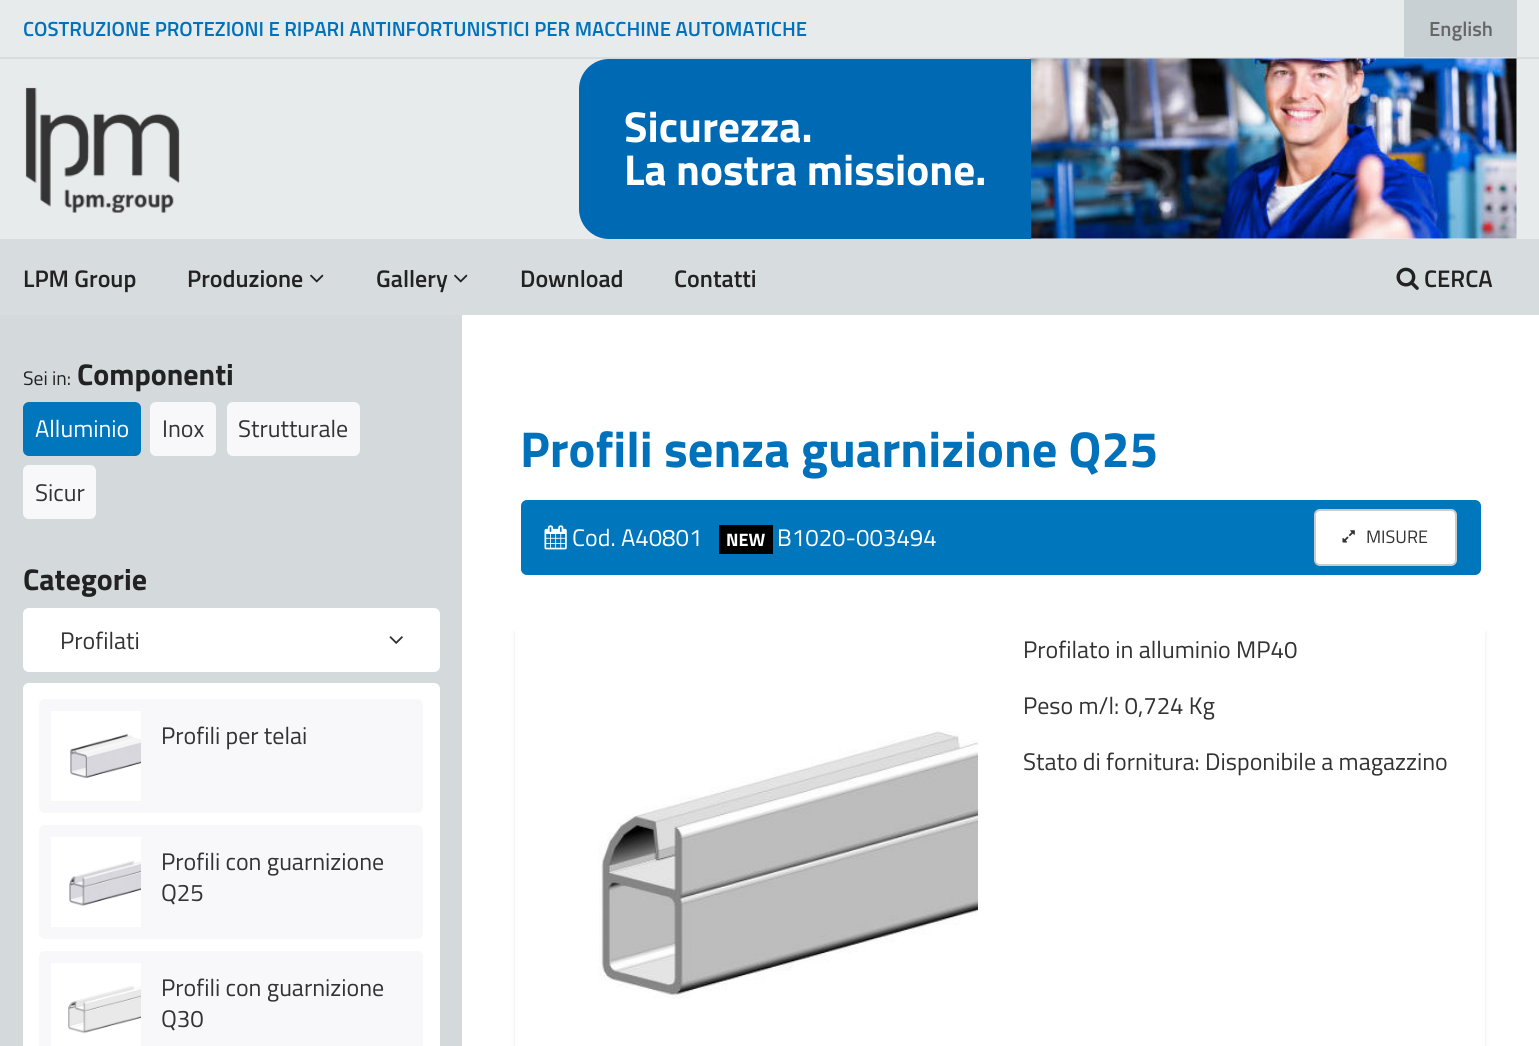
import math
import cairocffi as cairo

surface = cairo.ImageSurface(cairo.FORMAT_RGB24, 1539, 1046)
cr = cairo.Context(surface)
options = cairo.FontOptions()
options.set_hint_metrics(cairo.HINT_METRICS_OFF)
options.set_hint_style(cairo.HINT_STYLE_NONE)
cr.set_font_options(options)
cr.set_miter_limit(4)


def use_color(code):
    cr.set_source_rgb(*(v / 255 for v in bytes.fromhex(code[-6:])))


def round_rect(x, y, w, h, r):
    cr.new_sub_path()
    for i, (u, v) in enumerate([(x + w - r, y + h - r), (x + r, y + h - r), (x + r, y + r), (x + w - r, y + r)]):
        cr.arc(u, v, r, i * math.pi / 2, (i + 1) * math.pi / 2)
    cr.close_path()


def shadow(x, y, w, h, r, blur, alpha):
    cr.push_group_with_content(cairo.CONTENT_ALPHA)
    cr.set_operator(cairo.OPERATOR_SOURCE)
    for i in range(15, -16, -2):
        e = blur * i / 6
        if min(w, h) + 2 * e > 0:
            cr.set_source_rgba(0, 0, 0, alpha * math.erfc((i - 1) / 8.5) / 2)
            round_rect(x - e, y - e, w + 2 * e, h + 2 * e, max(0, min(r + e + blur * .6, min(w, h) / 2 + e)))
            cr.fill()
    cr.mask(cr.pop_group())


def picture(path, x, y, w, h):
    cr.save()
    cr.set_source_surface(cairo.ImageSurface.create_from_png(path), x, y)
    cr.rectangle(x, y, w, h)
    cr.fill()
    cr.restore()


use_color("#e8ebec")
cr.paint()
use_color("#d7dcde")
cr.rectangle(0, 57, 1539, 2)
cr.fill()
cr.select_font_face("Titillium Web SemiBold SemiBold")
cr.set_font_size(20.4)
use_color("#0071bb")
cr.move_to(23, 36)
cr.show_text("COSTRUZIONE PROTEZIONI E RIPARI ANTINFORTUNISTICI PER MACCHINE AUTOMATICHE")
use_color("#c9d0d3")
cr.rectangle(1404, 0, 113, 57)
cr.fill()
use_color("#666666")
cr.move_to(1429, 36)
cr.show_text("English")
picture("img1.png", 25, 87, 155, 126)
picture("img2.png", 1030, 58, 487, 181)
use_color("#0069b3")
cr.new_path()
cr.move_to(609, 59)
cr.line_to(1031, 59)
cr.line_to(1031, 239)
cr.line_to(609, 239)
cr.curve_to(592.5, 239, 579, 225.5, 579, 209)
cr.line_to(579, 89)
cr.curve_to(579, 72.5, 592.5, 59, 609, 59)
cr.close_path()
cr.fill()
cr.select_font_face("Titillium Web", cairo.FONT_SLANT_NORMAL, cairo.FONT_WEIGHT_BOLD)
cr.set_font_size(43.25)
use_color("#ffffff")
cr.move_to(624, 142)
cr.show_text("Sicurezza.")
cr.move_to(624, 185)
cr.show_text("La nostra missione.")
use_color("#d7dcde")
cr.rectangle(0, 239, 1539, 76)
cr.fill()
cr.select_font_face("Titillium Web SemiBold SemiBold")
cr.set_font_size(24)
use_color("#222222")
cr.move_to(23, 287)
cr.show_text("LPM Group")
cr.move_to(187, 287)
cr.show_text("Produzione")
picture("img3.png", 310, 274, 14, 9)
cr.move_to(376, 287)
cr.show_text("Gallery")
picture("img3.png", 454, 274, 14, 9)
cr.move_to(520, 287)
cr.show_text("Download")
cr.move_to(674, 287)
cr.show_text("Contatti")
picture("img4.png", 1396, 267, 23, 23)
cr.move_to(1424, 287)
cr.show_text("CERCA")
use_color("#d4dadc")
cr.rectangle(0, 315, 462, 731)
cr.fill()
cr.select_font_face("Titillium Web")
cr.set_font_size(19.5)
use_color("#222222")
cr.move_to(23, 385)
cr.show_text("Sei in:")
cr.select_font_face("Titillium Web", cairo.FONT_SLANT_NORMAL, cairo.FONT_WEIGHT_BOLD)
cr.set_font_size(30)
cr.move_to(77, 385)
cr.show_text("Componenti")
use_color("#0076bd")
round_rect(23, 402, 118, 54, 6)
cr.fill()
cr.select_font_face("Titillium Web")
cr.set_font_size(24)
use_color("#ffffff")
cr.move_to(35, 437)
cr.show_text("Alluminio")
use_color("#f8f8fa")
round_rect(150, 402, 66, 54, 6)
cr.fill()
use_color("#333333")
cr.move_to(162, 437)
cr.show_text("Inox")
use_color("#f8f8fa")
round_rect(227, 402, 133, 54, 6)
cr.fill()
use_color("#333333")
cr.move_to(238, 437)
cr.show_text("Strutturale")
use_color("#f8f8fa")
round_rect(23, 465, 73, 54, 6)
cr.fill()
use_color("#333333")
cr.move_to(35, 501)
cr.show_text("Sicur")
cr.select_font_face("Titillium Web", cairo.FONT_SLANT_NORMAL, cairo.FONT_WEIGHT_BOLD)
cr.set_font_size(30)
use_color("#222222")
cr.move_to(23, 590)
cr.show_text("Categorie")
use_color("#ffffff")
round_rect(24, 609, 415, 62, 5)
cr.fill_preserve()
cr.stroke()
cr.select_font_face("Titillium Web")
cr.set_font_size(24)
use_color("#333333")
cr.move_to(60, 649)
cr.show_text("Profilati")
picture("img5.png", 389, 636, 14, 8)
use_color("#ffffff")
round_rect(23, 683, 417, 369, 6)
cr.fill()
use_color("#f8f8fa")
round_rect(39, 699, 384, 114, 6)
cr.fill()
picture("img6.png", 51, 711, 90, 90)
use_color("#333333")
cr.move_to(161, 744)
cr.show_text("Profili per telai")
use_color("#f8f8fa")
round_rect(39, 825, 384, 114, 6)
cr.fill()
picture("img7.png", 51, 837, 90, 90)
use_color("#333333")
cr.move_to(161, 870)
cr.show_text("Profili con guarnizione")
cr.move_to(161, 901)
cr.show_text("Q25")
use_color("#f8f8fa")
round_rect(39, 951, 384, 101, 6)
cr.fill()
picture("img8.png", 51, 963, 90, 83)
use_color("#333333")
cr.move_to(161, 996)
cr.show_text("Profili con guarnizione")
cr.move_to(161, 1027)
cr.show_text("Q30")
use_color("#ffffff")
cr.rectangle(462, 315, 1077, 731)
cr.fill()
cr.select_font_face("Titillium Web", cairo.FONT_SLANT_NORMAL, cairo.FONT_WEIGHT_BOLD)
cr.set_font_size(50.4)
use_color("#0071bb")
cr.move_to(520, 467)
cr.show_text("Profili senza guarnizione Q25")
use_color("#0076bd")
round_rect(521, 500, 960, 75, 6)
cr.fill()
picture("img9.png", 544, 525, 23, 25)
cr.select_font_face("Titillium Web")
cr.set_font_size(24)
use_color("#ffffff")
cr.move_to(572, 546)
cr.show_text("Cod. A40801")
use_color("#000000")
cr.rectangle(719, 525, 54, 29)
cr.fill()
cr.select_font_face("Titillium Web", cairo.FONT_SLANT_NORMAL, cairo.FONT_WEIGHT_BOLD)
cr.set_font_size(18)
use_color("#ffffff")
cr.move_to(726, 546)
cr.show_text("NEW")
cr.select_font_face("Titillium Web")
cr.set_font_size(24)
cr.move_to(777, 546)
cr.show_text("B1020-003494")
round_rect(1315, 510, 141, 55, 5)
cr.fill_preserve()
use_color("#cccccc")
cr.stroke()
picture("img10.png", 1342, 530, 13, 13)
cr.set_font_size(18)
use_color("#333333")
cr.move_to(1366, 543)
cr.show_text("MISURE")
cr.save()
cr.set_fill_rule(cairo.FILL_RULE_EVEN_ODD)
cr.new_path()
cr.move_to(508, 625)
cr.line_to(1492, 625)
cr.line_to(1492, 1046)
cr.line_to(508, 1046)
cr.close_path()
cr.move_to(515, 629)
cr.line_to(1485, 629)
cr.line_to(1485, 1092)
cr.line_to(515, 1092)
cr.close_path()
cr.clip()
use_color("#000000")
shadow(515, 632, 970, 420, 0, 2, 0.1)
cr.restore()
cr.set_font_size(24)
cr.move_to(1023, 658)
cr.show_text("Profilato in alluminio MP40")
cr.move_to(1023, 714)
cr.show_text("Peso m/l: 0,724 Kg")
cr.move_to(1023, 770)
cr.show_text("Stato di fornitura: Disponibile a magazzino")
picture("img11.png", 598, 731, 380, 268)
surface.write_to_png("result.png")
